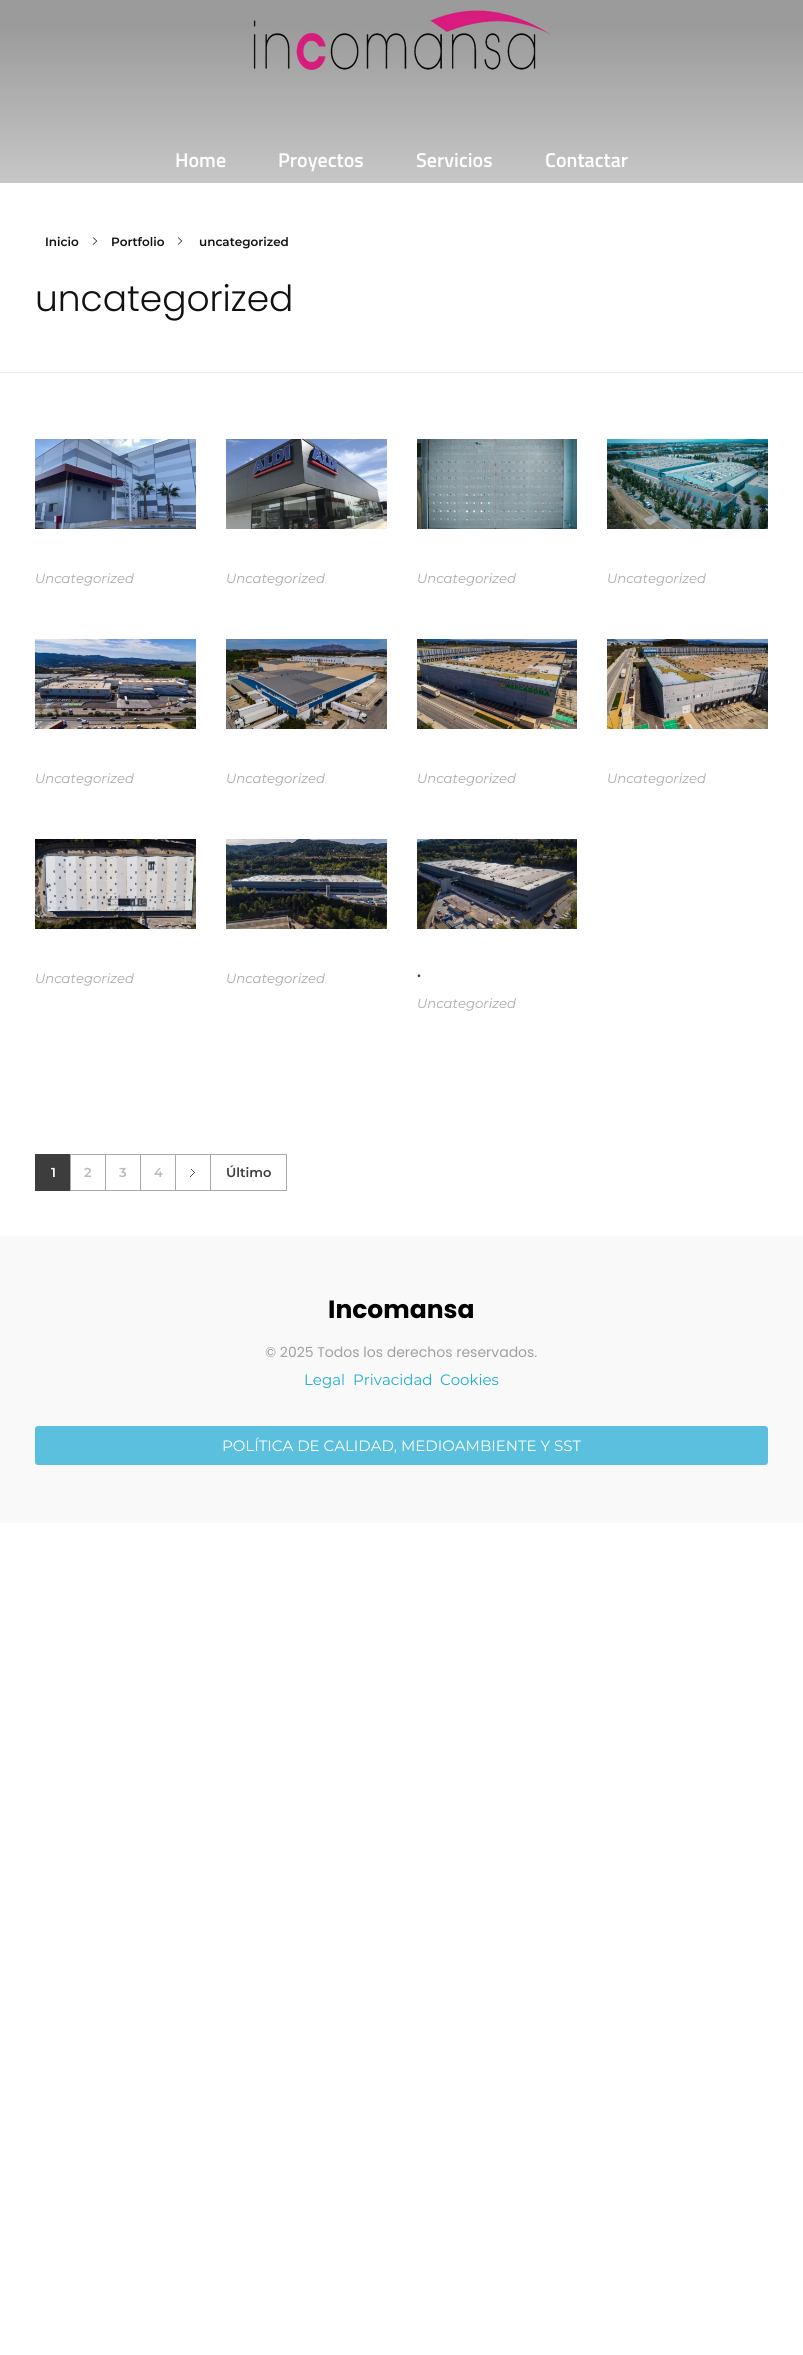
import math
import cairocffi as cairo

surface = cairo.ImageSurface(cairo.FORMAT_RGB24, 803, 2355)
cr = cairo.Context(surface)
options = cairo.FontOptions()
options.set_hint_metrics(cairo.HINT_METRICS_OFF)
options.set_hint_style(cairo.HINT_STYLE_NONE)
cr.set_font_options(options)
cr.set_miter_limit(4)


def use_color(code):
    cr.set_source_rgb(*(v / 255 for v in bytes.fromhex(code[-6:])))


def round_rect(x, y, w, h, r):
    cr.new_sub_path()
    for i, (u, v) in enumerate([(x + w - r, y + h - r), (x + r, y + h - r), (x + r, y + r), (x + w - r, y + r)]):
        cr.arc(u, v, r, i * math.pi / 2, (i + 1) * math.pi / 2)
    cr.close_path()


def picture(path, x, y, w, h):
    cr.save()
    cr.set_source_surface(cairo.ImageSurface.create_from_png(path), x, y)
    cr.rectangle(x, y, w, h)
    cr.fill()
    cr.restore()


use_color("#ffffff")
cr.paint()
gradient = cairo.LinearGradient(402, 0, 402, 183)
gradient.add_color_stop_rgba(0.15, 0.608, 0.608, 0.608, 1)
gradient.add_color_stop_rgba(1, 0.78, 0.78, 0.78, 1)
cr.set_source(gradient)
cr.rectangle(0, 0, 803, 183)
cr.fill()
picture("img1.png", 253, 10, 299, 60)
cr.select_font_face("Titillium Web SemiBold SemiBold")
cr.set_font_size(20)
use_color("#ffffff")
cr.move_to(175, 167)
cr.show_text("Home")
cr.move_to(278, 167)
cr.show_text("Proyectos")
cr.move_to(416, 167)
cr.show_text("Servicios")
cr.move_to(545, 167)
cr.show_text("Contactar")
use_color("#eaeaea")
cr.rectangle(0, 372, 803, 1)
cr.fill()
cr.select_font_face("Montserrat SemiBold")
cr.set_font_size(12)
use_color("#111111")
cr.move_to(45, 246)
cr.show_text("Inicio")
picture("img2.png", 92, 237, 6, 8)
cr.move_to(111, 246)
cr.show_text("Portfolio")
picture("img2.png", 177, 237, 6, 8)
cr.move_to(199, 246)
cr.show_text("uncategorized")
cr.select_font_face("Poppins Light")
cr.set_font_size(36)
cr.move_to(35, 311)
cr.show_text("uncategorized")
picture("img3.png", 35, 439, 161, 90)
cr.select_font_face("Montserrat", cairo.FONT_SLANT_ITALIC)
cr.set_font_size(13.25)
use_color("#aaaaaa")
cr.move_to(35, 583)
cr.show_text("Uncategorized")
picture("img4.png", 226, 439, 161, 90)
cr.move_to(226, 583)
cr.show_text("Uncategorized")
picture("img5.png", 417, 439, 160, 90)
cr.move_to(417, 583)
cr.show_text("Uncategorized")
picture("img6.png", 607, 439, 161, 90)
cr.move_to(607, 583)
cr.show_text("Uncategorized")
picture("img7.png", 35, 639, 161, 90)
cr.move_to(35, 783)
cr.show_text("Uncategorized")
picture("img8.png", 226, 639, 161, 90)
cr.move_to(226, 783)
cr.show_text("Uncategorized")
picture("img9.png", 417, 639, 160, 90)
cr.move_to(417, 783)
cr.show_text("Uncategorized")
picture("img10.png", 607, 639, 161, 90)
cr.move_to(607, 783)
cr.show_text("Uncategorized")
picture("img11.png", 35, 839, 161, 90)
cr.move_to(35, 983)
cr.show_text("Uncategorized")
picture("img12.png", 226, 839, 161, 90)
cr.move_to(226, 983)
cr.show_text("Uncategorized")
picture("img13.png", 417, 839, 160, 90)
cr.select_font_face("Montserrat SemiBold")
cr.set_font_size(16)
use_color("#3d3d3d")
cr.move_to(417, 977)
cr.show_text(".")
cr.select_font_face("Montserrat", cairo.FONT_SLANT_ITALIC)
cr.set_font_size(13.25)
use_color("#aaaaaa")
cr.move_to(417, 1008)
cr.show_text("Uncategorized")
use_color("#3d3d3d")
cr.rectangle(36, 1155, 34, 35)
cr.fill()
cr.rectangle(35, 1154, 35, 1)
cr.fill()
cr.rectangle(35, 1190, 35, 1)
cr.fill()
cr.rectangle(35, 1154, 1, 37)
cr.fill()
cr.select_font_face("Montserrat SemiBold")
cr.set_font_size(13)
use_color("#ffffff")
cr.move_to(51, 1177)
cr.show_text("1")
use_color("#aaaaaa")
cr.rectangle(70, 1154, 140, 1)
cr.fill()
cr.rectangle(70, 1190, 140, 1)
cr.fill()
cr.rectangle(70, 1154, 1, 37)
cr.fill()
use_color("#bbbbbb")
cr.move_to(84, 1177)
cr.show_text("2")
use_color("#aaaaaa")
cr.rectangle(105, 1154, 1, 37)
cr.fill()
use_color("#bbbbbb")
cr.move_to(119, 1177)
cr.show_text("3")
use_color("#aaaaaa")
cr.rectangle(140, 1154, 1, 37)
cr.fill()
use_color("#bbbbbb")
cr.move_to(154, 1177)
cr.show_text("4")
use_color("#aaaaaa")
cr.rectangle(175, 1154, 1, 37)
cr.fill()
picture("img14.png", 190, 1169, 5, 8)
cr.rectangle(210.5, 1154.5, 76, 36)
cr.set_line_width(1)
cr.stroke()
use_color("#3d3d3d")
cr.move_to(226, 1177)
cr.show_text("Último")
use_color("#f9f9f9")
cr.rectangle(0, 1236, 803, 287)
cr.fill()
cr.select_font_face("Poppins", cairo.FONT_SLANT_NORMAL, cairo.FONT_WEIGHT_BOLD)
cr.set_font_size(25)
use_color("#000000")
cr.move_to(328, 1318)
cr.show_text("Incomansa")
cr.select_font_face("Poppins")
cr.set_font_size(14)
use_color("#a0a0a0")
cr.move_to(265, 1357)
cr.show_text("© 2025 Todos los derechos reservados.")
cr.select_font_face("Montserrat")
cr.set_font_size(15)
use_color("#1bb0ce")
cr.move_to(304, 1385)
cr.show_text("Legal")
cr.move_to(353, 1385)
cr.show_text("Privacidad")
cr.move_to(440, 1385)
cr.show_text("Cookies")
use_color("#5bc0de")
round_rect(35, 1426, 733, 39, 3)
cr.fill()
use_color("#ffffff")
cr.move_to(222, 1451)
cr.show_text("POLÍTICA DE CALIDAD, MEDIOAMBIENTE Y SST")
surface.write_to_png("result.png")
